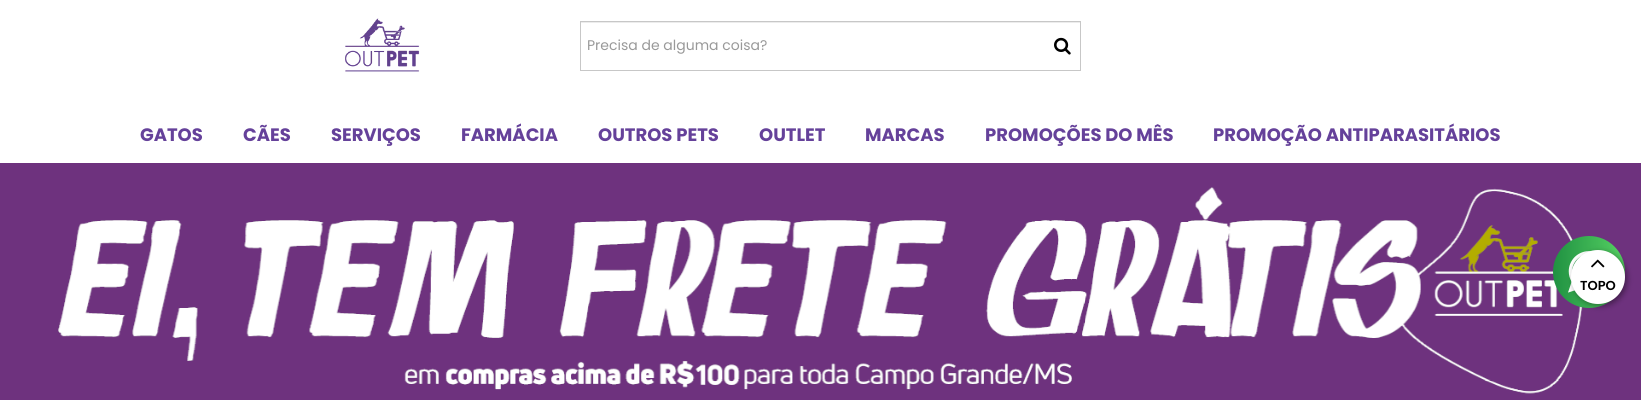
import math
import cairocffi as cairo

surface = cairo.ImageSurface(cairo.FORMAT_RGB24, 1641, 400)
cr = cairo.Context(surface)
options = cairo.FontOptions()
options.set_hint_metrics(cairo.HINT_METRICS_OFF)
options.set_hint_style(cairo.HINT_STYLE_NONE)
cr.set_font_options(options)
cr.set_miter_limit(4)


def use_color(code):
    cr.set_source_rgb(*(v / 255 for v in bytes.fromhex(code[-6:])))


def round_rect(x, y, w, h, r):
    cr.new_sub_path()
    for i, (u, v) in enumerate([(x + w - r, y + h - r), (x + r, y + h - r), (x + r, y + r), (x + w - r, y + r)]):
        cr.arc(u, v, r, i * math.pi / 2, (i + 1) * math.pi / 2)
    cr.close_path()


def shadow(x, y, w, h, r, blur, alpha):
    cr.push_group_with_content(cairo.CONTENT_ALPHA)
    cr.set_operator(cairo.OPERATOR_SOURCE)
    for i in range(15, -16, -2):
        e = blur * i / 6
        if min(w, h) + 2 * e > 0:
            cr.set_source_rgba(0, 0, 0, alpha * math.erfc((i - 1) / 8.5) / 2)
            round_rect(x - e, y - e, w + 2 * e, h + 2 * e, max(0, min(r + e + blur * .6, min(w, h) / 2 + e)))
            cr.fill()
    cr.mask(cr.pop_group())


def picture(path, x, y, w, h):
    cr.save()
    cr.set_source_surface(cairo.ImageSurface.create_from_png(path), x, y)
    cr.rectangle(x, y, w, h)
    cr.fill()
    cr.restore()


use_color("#ffffff")
cr.paint()
picture("img1.png", 345, 18, 75, 54)
use_color("#ececec")
cr.rectangle(581, 22, 499, 1)
cr.fill()
cr.rectangle(580.5, 21.5, 500, 49)
use_color("#c7c7c7")
cr.set_line_width(1)
cr.stroke()
cr.select_font_face("Poppins")
cr.set_font_size(14)
use_color("#999999")
cr.move_to(587, 50)
cr.show_text("Precisa de alguma coisa?")
picture("img2.png", 1054, 37, 17, 18)
cr.select_font_face("Poppins", cairo.FONT_SLANT_NORMAL, cairo.FONT_WEIGHT_BOLD)
cr.set_font_size(18)
use_color("#65419a")
cr.move_to(140, 141)
cr.show_text("GATOS")
cr.move_to(243, 141)
cr.show_text("CÃES")
cr.move_to(331, 141)
cr.show_text("SERVIÇOS")
cr.move_to(461, 141)
cr.show_text("FARMÁCIA")
cr.move_to(598, 141)
cr.show_text("OUTROS PETS")
cr.move_to(759, 141)
cr.show_text("OUTLET")
cr.move_to(865, 141)
cr.show_text("MARCAS")
cr.move_to(985, 141)
cr.show_text("PROMOÇÕES DO MÊS")
cr.move_to(1213, 141)
cr.show_text("PROMOÇÃO ANTIPARASITÁRIOS")
picture("img3.png", 0, 163, 1641, 237)
gradient = cairo.LinearGradient(1553, 272, 1625, 272)
gradient.add_color_stop_rgba(0, 0.125, 0.569, 0.259, 1)
gradient.add_color_stop_rgba(1, 0.337, 0.824, 0.388, 1)
cr.set_source(gradient)
cr.arc(1589, 272, 36, 0, 2 * math.pi)
cr.fill()
picture("img4.png", 1568, 251, 23, 42)
use_color("#000000")
shadow(1573, 252, 54, 54, 27, 3, 0.4)
use_color("#ffffff")
cr.arc(1598, 277, 27, 0, 2 * math.pi)
cr.fill()
picture("img5.png", 1591, 259, 14, 9)
cr.select_font_face("Poppins SemiBold")
cr.set_font_size(13)
use_color("#000000")
cr.move_to(1580, 290)
cr.show_text("TOPO")
surface.write_to_png("result.png")
